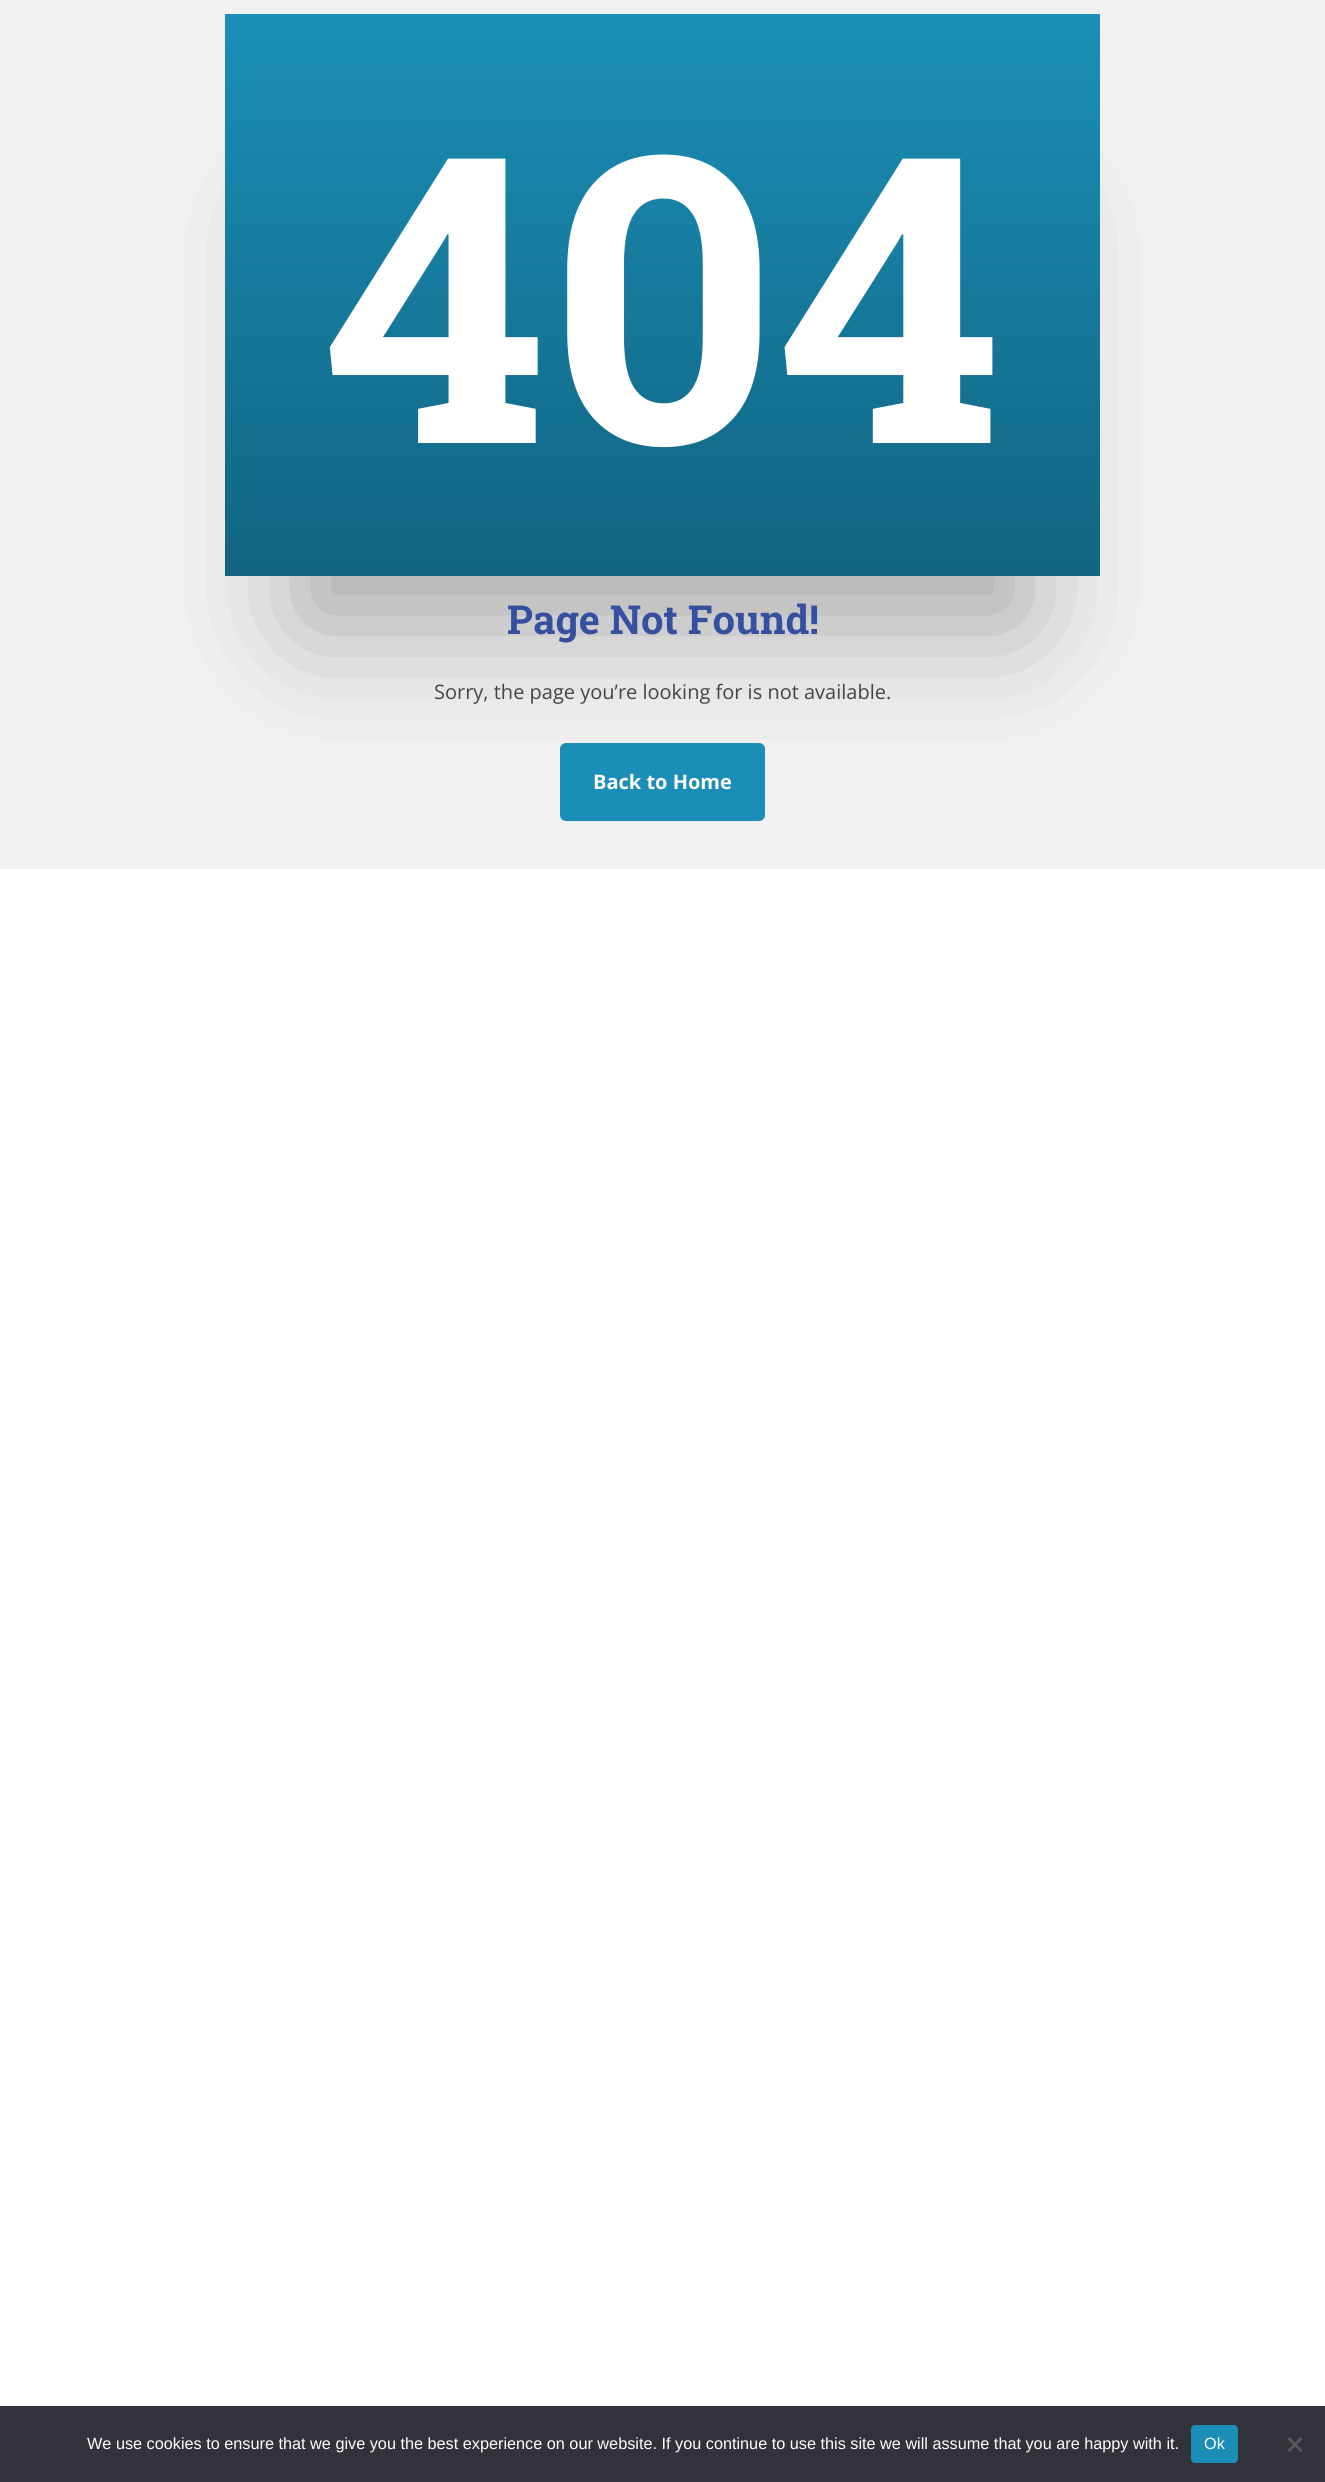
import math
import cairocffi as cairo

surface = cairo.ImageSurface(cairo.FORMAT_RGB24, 1325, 2482)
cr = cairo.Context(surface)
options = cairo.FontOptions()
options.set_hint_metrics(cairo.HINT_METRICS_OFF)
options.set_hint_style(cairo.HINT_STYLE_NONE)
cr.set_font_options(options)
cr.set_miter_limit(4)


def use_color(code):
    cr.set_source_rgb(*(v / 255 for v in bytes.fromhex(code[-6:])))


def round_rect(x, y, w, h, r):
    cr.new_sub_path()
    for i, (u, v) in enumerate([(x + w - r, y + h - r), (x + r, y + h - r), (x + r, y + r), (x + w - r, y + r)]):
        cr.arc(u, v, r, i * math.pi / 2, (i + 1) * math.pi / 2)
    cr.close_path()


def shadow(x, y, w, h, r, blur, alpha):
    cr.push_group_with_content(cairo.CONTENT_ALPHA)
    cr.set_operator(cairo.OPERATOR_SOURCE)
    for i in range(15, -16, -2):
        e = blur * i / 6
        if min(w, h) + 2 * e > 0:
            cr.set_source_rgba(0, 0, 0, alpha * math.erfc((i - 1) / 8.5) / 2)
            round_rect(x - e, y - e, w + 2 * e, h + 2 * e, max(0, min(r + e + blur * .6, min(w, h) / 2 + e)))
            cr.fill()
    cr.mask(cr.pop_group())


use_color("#ffffff")
cr.paint()
use_color("#f1f1f1")
cr.rectangle(0, 0, 1325, 869)
cr.fill()
use_color("#000000")
shadow(300, 214, 725, 412, 0, 62.5, 0.3)
gradient = cairo.LinearGradient(663, 14, 663, 576)
gradient.add_color_stop_rgba(0, 0.102, 0.561, 0.722, 1)
gradient.add_color_stop_rgba(1, 0.071, 0.392, 0.506, 1)
cr.set_source(gradient)
cr.rectangle(225, 14, 875, 562)
cr.fill()
cr.select_font_face("Roboto Slab", cairo.FONT_SLANT_NORMAL, cairo.FONT_WEIGHT_BOLD)
cr.set_font_size(400)
use_color("#ffffff")
cr.move_to(322, 443)
cr.show_text("404")
cr.set_font_size(40)
use_color("#3550a0")
cr.move_to(507, 634)
cr.show_text("Page Not Found!")
cr.select_font_face("Open Sans")
cr.set_font_size(20)
use_color("#454545")
cr.move_to(434, 699)
cr.show_text("Sorry, the page you’re looking for is not available.")
use_color("#1a8eb7")
round_rect(560, 743, 205, 78, 6)
cr.fill()
cr.select_font_face("Open Sans", cairo.FONT_SLANT_NORMAL, cairo.FONT_WEIGHT_BOLD)
use_color("#ffffff")
cr.move_to(593, 789)
cr.show_text("Back to Home")
use_color("#32323a")
cr.rectangle(0, 2406, 1325, 76)
cr.fill()
cr.select_font_face("Liberation Sans")
cr.set_font_size(16.25)
use_color("#ffffff")
cr.move_to(87, 2449)
cr.show_text("We use cookies to ensure that we give you the best experience on our website. If you continue to use this site we will assume that you are happy with it.")
use_color("#1a8eb7")
round_rect(1191, 2425, 47, 38, 4)
cr.fill()
use_color("#ffffff")
cr.move_to(1204, 2449)
cr.show_text("Ok")
use_color("#59595d")
cr.new_path()
cr.move_to(1300.5, 2437)
cr.line_to(1302.5, 2439)
cr.line_to(1289.5, 2452)
cr.line_to(1287.5, 2450.5)
cr.close_path()
cr.fill()
cr.new_path()
cr.move_to(1287.5, 2439)
cr.line_to(1289.5, 2437)
cr.line_to(1302.5, 2450.5)
cr.line_to(1300.5, 2452)
cr.close_path()
cr.fill()
surface.write_to_png("result.png")
